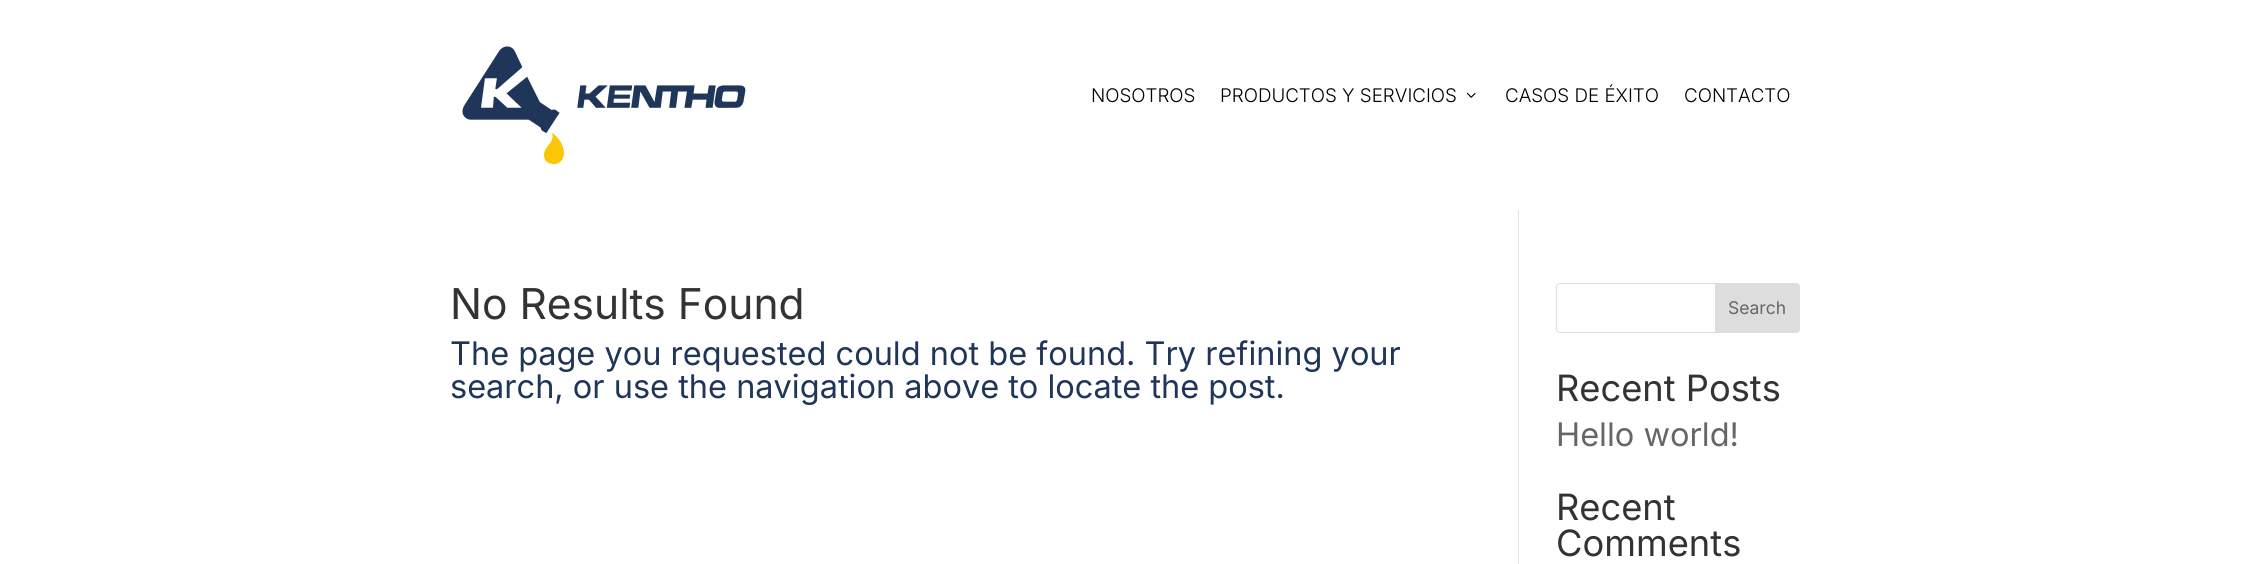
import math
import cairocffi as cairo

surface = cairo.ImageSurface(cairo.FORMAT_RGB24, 2249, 564)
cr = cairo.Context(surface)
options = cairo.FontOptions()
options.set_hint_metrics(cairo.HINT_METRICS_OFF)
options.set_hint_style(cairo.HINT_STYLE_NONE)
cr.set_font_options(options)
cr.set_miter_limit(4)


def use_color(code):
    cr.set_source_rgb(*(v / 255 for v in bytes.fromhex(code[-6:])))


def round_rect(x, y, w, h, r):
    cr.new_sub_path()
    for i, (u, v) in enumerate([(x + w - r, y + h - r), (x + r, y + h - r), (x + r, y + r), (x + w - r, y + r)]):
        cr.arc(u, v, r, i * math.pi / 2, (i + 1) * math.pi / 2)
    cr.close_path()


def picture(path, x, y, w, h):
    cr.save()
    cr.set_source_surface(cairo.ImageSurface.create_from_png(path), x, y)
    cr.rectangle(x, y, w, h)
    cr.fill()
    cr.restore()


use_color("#ffffff")
cr.paint()
picture("img1.png", 462, 46, 284, 119)
cr.select_font_face("Inter Light")
cr.set_font_size(18.75)
use_color("#000000")
cr.move_to(1091, 102)
cr.show_text("NOSOTROS")
cr.move_to(1220, 102)
cr.show_text("PRODUCTOS Y SERVICIOS")
picture("img2.png", 1466, 92, 10, 6)
cr.move_to(1505, 102)
cr.show_text("CASOS DE ÉXITO")
cr.move_to(1684, 102)
cr.show_text("CONTACTO")
use_color("#e2e2e2")
cr.rectangle(1518, 210, 1, 354)
cr.fill()
cr.select_font_face("Inter")
cr.set_font_size(42.5)
use_color("#333333")
cr.move_to(450, 319)
cr.show_text("No Results Found")
cr.set_font_size(32.5)
use_color("#1f365a")
cr.move_to(450, 365)
cr.show_text("The page you requested could not be found. Try refining your")
cr.move_to(450, 398)
cr.show_text("search, or use the navigation above to locate the post.")
round_rect(1556.5, 283.5, 243, 49, 3.5)
use_color("#dddddd")
cr.set_line_width(1)
cr.stroke()
cr.new_path()
cr.move_to(1715.5, 283.5)
cr.line_to(1796, 283.5)
cr.curve_to(1798, 283.5, 1799.5, 285, 1799.5, 287)
cr.line_to(1799.5, 329)
cr.curve_to(1799.5, 331, 1798, 332.5, 1796, 332.5)
cr.line_to(1715.5, 332.5)
cr.close_path()
cr.fill_preserve()
cr.stroke()
cr.set_font_size(17.5)
use_color("#666666")
cr.move_to(1728, 314)
cr.show_text("Search")
cr.set_font_size(36.25)
use_color("#333333")
cr.move_to(1556, 401)
cr.show_text("Recent Posts")
cr.set_font_size(32.5)
use_color("#666666")
cr.move_to(1556, 446)
cr.show_text("Hello world!")
cr.set_font_size(36.25)
use_color("#333333")
cr.move_to(1556, 520)
cr.show_text("Recent")
cr.move_to(1556, 556)
cr.show_text("Comments")
surface.write_to_png("result.png")
